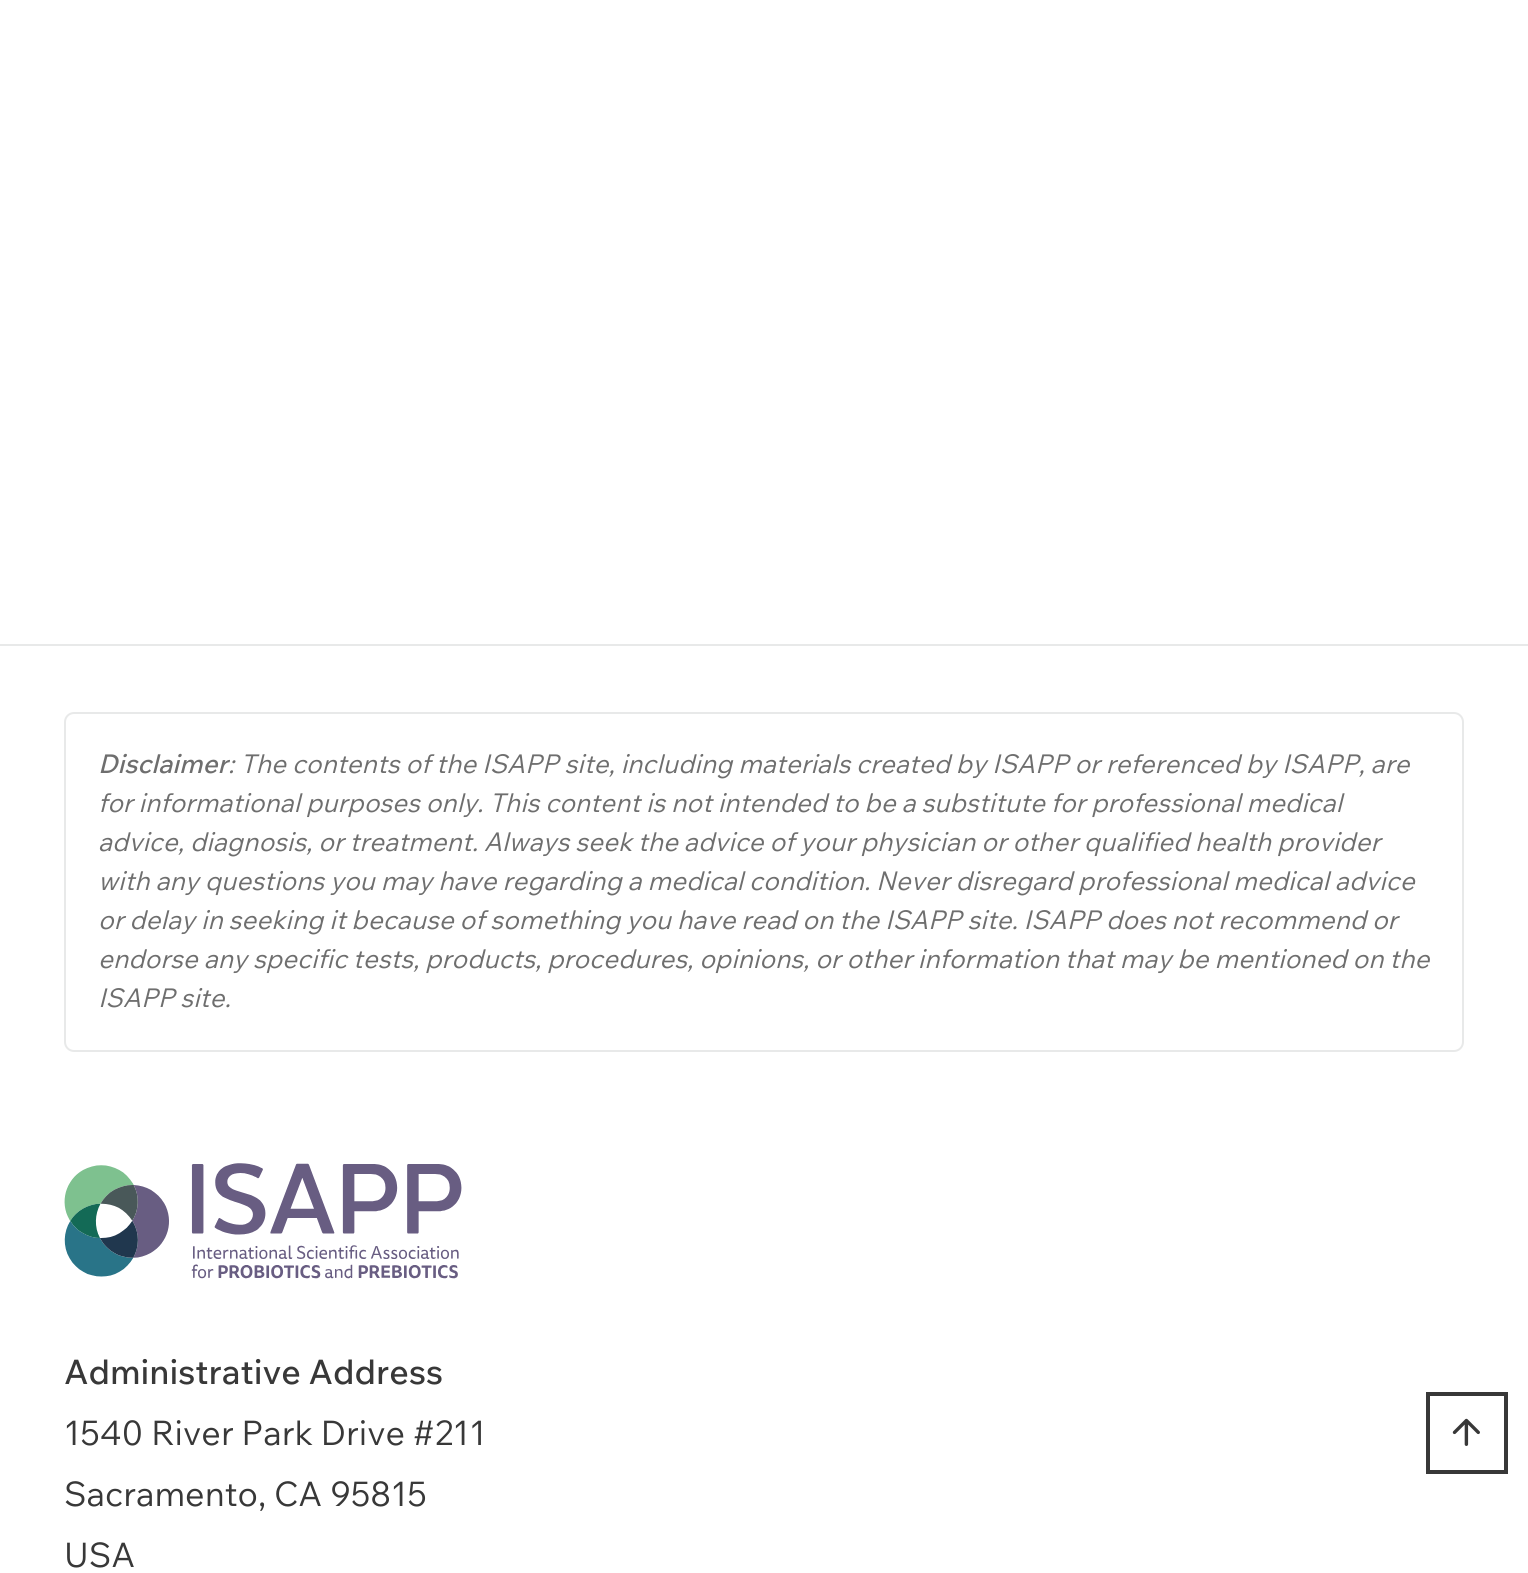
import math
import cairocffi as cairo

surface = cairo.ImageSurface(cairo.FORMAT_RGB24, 1528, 1573)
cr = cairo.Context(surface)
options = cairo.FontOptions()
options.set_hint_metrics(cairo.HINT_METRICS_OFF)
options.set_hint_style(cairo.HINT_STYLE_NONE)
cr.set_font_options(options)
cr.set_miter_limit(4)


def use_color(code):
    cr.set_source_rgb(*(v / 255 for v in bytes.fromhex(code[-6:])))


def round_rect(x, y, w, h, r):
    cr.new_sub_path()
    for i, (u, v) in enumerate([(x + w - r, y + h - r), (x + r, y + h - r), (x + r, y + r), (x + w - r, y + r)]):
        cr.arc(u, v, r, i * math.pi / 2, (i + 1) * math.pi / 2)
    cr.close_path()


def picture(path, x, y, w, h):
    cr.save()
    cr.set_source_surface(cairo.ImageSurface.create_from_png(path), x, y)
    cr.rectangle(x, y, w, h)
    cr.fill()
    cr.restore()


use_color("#ffffff")
cr.paint()
use_color("#e8e9e9")
cr.rectangle(0, 644, 1528, 2)
cr.fill()
round_rect(65, 713, 1398, 338, 9)
cr.stroke()
cr.select_font_face("Wix Madefor Text Medium", cairo.FONT_SLANT_ITALIC)
cr.set_font_size(26)
use_color("#6e6e6e")
cr.move_to(98, 773)
cr.show_text("Disclaimer")
cr.select_font_face("Wix Madefor Text", cairo.FONT_SLANT_ITALIC)
cr.move_to(228, 773)
cr.show_text(": The contents of the ISAPP site, including materials created by ISAPP or referenced by ISAPP, are")
cr.move_to(98, 812)
cr.show_text("for informational purposes only. This content is not intended to be a substitute for professional medical")
cr.move_to(98, 851)
cr.show_text("advice, diagnosis, or treatment. Always seek the advice of your physician or other qualified health provider")
cr.move_to(98, 890)
cr.show_text("with any questions you may have regarding a medical condition. Never disregard professional medical advice")
cr.move_to(98, 929)
cr.show_text("or delay in seeking it because of something you have read on the ISAPP site. ISAPP does not recommend or")
cr.move_to(98, 968)
cr.show_text("endorse any specific tests, products, procedures, opinions, or other information that may be mentioned on the")
cr.move_to(98, 1007)
cr.show_text("ISAPP site.")
picture("img1.png", 64, 1163, 398, 116)
cr.select_font_face("Wix Madefor Text Medium")
cr.set_font_size(34)
use_color("#383838")
cr.move_to(64, 1384)
cr.show_text("Administrative Address")
cr.select_font_face("Wix Madefor Text")
cr.move_to(64, 1445)
cr.show_text("1540 River Park Drive #211")
cr.move_to(64, 1506)
cr.show_text("Sacramento, CA 95815")
cr.move_to(64, 1567)
cr.show_text("USA")
cr.rectangle(1428, 1394, 78, 78)
cr.set_line_width(4)
cr.stroke()
picture("img2.png", 1452, 1418, 28, 28)
surface.write_to_png("result.png")
